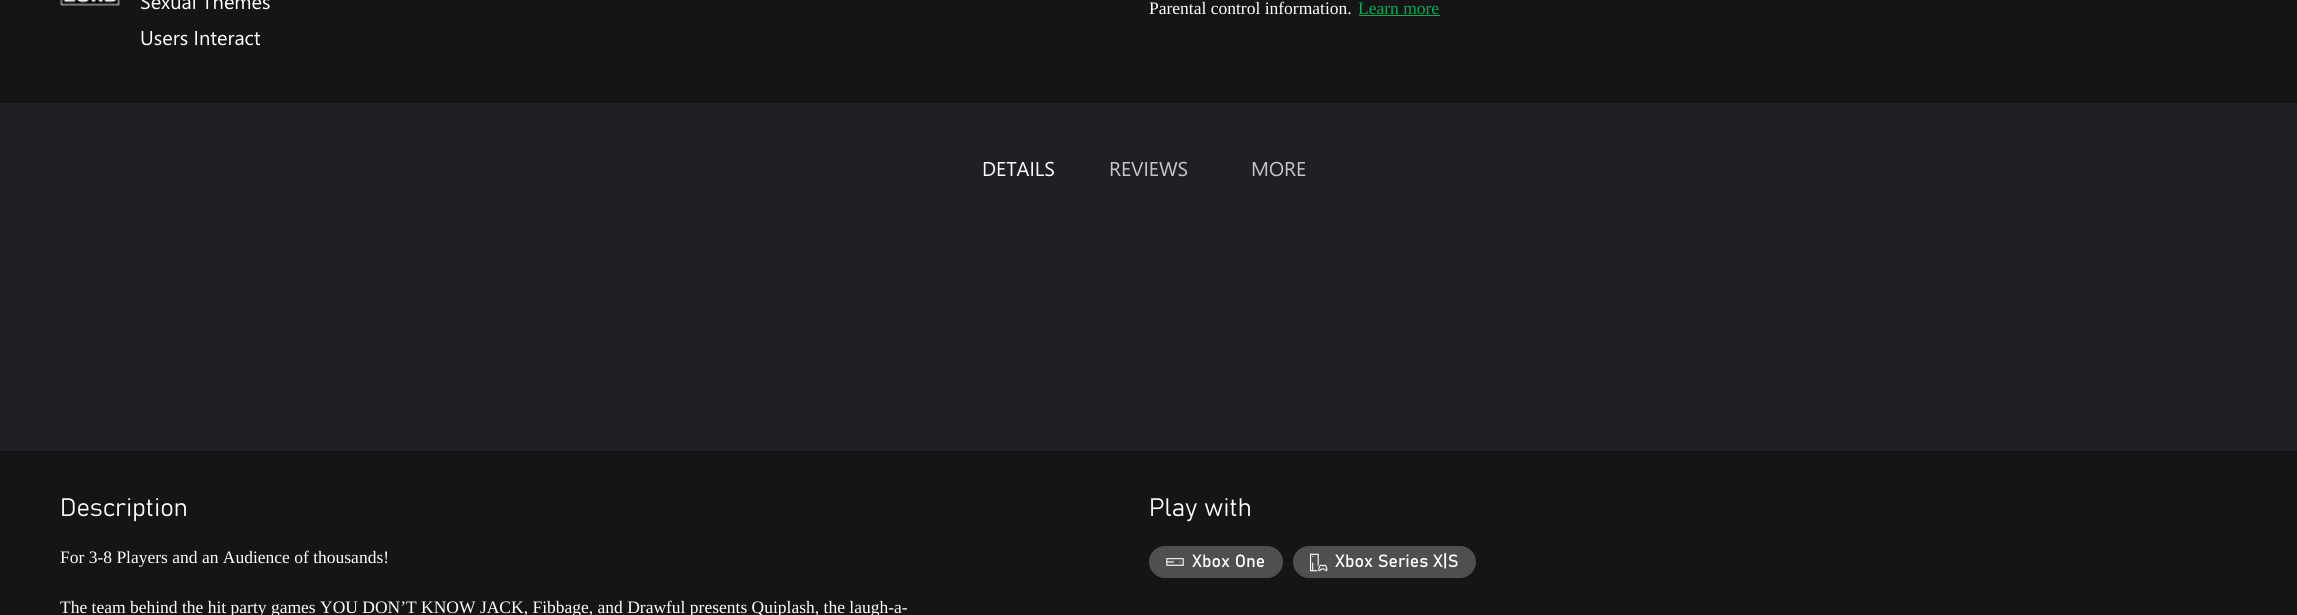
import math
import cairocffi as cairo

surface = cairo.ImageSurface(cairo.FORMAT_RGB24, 2297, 615)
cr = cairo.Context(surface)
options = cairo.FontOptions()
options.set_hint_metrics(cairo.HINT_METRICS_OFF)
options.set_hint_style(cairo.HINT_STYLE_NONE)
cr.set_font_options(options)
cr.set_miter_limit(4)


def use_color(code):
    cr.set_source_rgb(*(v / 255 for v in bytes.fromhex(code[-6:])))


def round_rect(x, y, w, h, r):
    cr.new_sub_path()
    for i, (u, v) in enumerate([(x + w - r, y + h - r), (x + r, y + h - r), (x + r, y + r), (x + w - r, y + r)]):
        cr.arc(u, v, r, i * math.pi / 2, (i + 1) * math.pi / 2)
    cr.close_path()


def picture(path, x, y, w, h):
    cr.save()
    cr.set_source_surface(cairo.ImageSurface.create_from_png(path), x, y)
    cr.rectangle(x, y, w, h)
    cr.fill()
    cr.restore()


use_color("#201f24")
cr.paint()
use_color("#151517")
cr.rectangle(0, 0, 2297, 103)
cr.fill()
picture("img1.png", 60, 0, 60, 6)
cr.select_font_face("Segoe UI")
cr.set_font_size(20)
use_color("#ffffff")
cr.move_to(140, 9)
cr.show_text("Sexual Themes")
cr.move_to(140, 45)
cr.show_text("Users Interact")
cr.select_font_face("Liberation Serif")
cr.set_font_size(17.5)
cr.move_to(1149, 14)
cr.show_text("Parental control information.")
use_color("#04ab4f")
cr.move_to(1358, 14)
cr.show_text("Learn more")
cr.rectangle(1359, 15, 81, 1)
cr.fill()
cr.select_font_face("Segoe UI")
cr.set_font_size(20)
use_color("#ffffff")
cr.move_to(982, 176)
cr.show_text("DETAILS")
use_color("#c7c7c8")
cr.move_to(1109, 176)
cr.show_text("REVIEWS")
cr.move_to(1251, 176)
cr.show_text("MORE")
use_color("#151517")
cr.rectangle(0, 451, 2297, 164)
cr.fill()
cr.select_font_face("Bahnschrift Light")
cr.set_font_size(25)
use_color("#ffffff")
cr.move_to(60, 516)
cr.show_text("Description")
cr.select_font_face("Liberation Serif")
cr.set_font_size(17.5)
cr.move_to(60, 563)
cr.show_text("For 3-8 Players and an Audience of thousands!")
cr.move_to(60, 613)
cr.show_text("The team behind the hit party games YOU DON’T KNOW JACK, Fibbage, and Drawful presents Quiplash, the laugh-a-")
cr.select_font_face("Bahnschrift Light")
cr.set_font_size(25)
cr.move_to(1149, 516)
cr.show_text("Play with")
use_color("#4d4f51")
round_rect(1149, 546, 134, 32, 16)
cr.fill()
picture("img2.png", 1166, 558, 18, 8)
cr.select_font_face("Bahnschrift")
cr.set_font_size(17.5)
use_color("#ffffff")
cr.move_to(1192, 567)
cr.show_text("Xbox One")
use_color("#4d4f51")
round_rect(1293, 546, 183, 32, 16)
cr.fill()
picture("img3.png", 1310, 553, 18, 19)
use_color("#ffffff")
cr.move_to(1335, 567)
cr.show_text("Xbox Series X|S")
surface.write_to_png("result.png")
